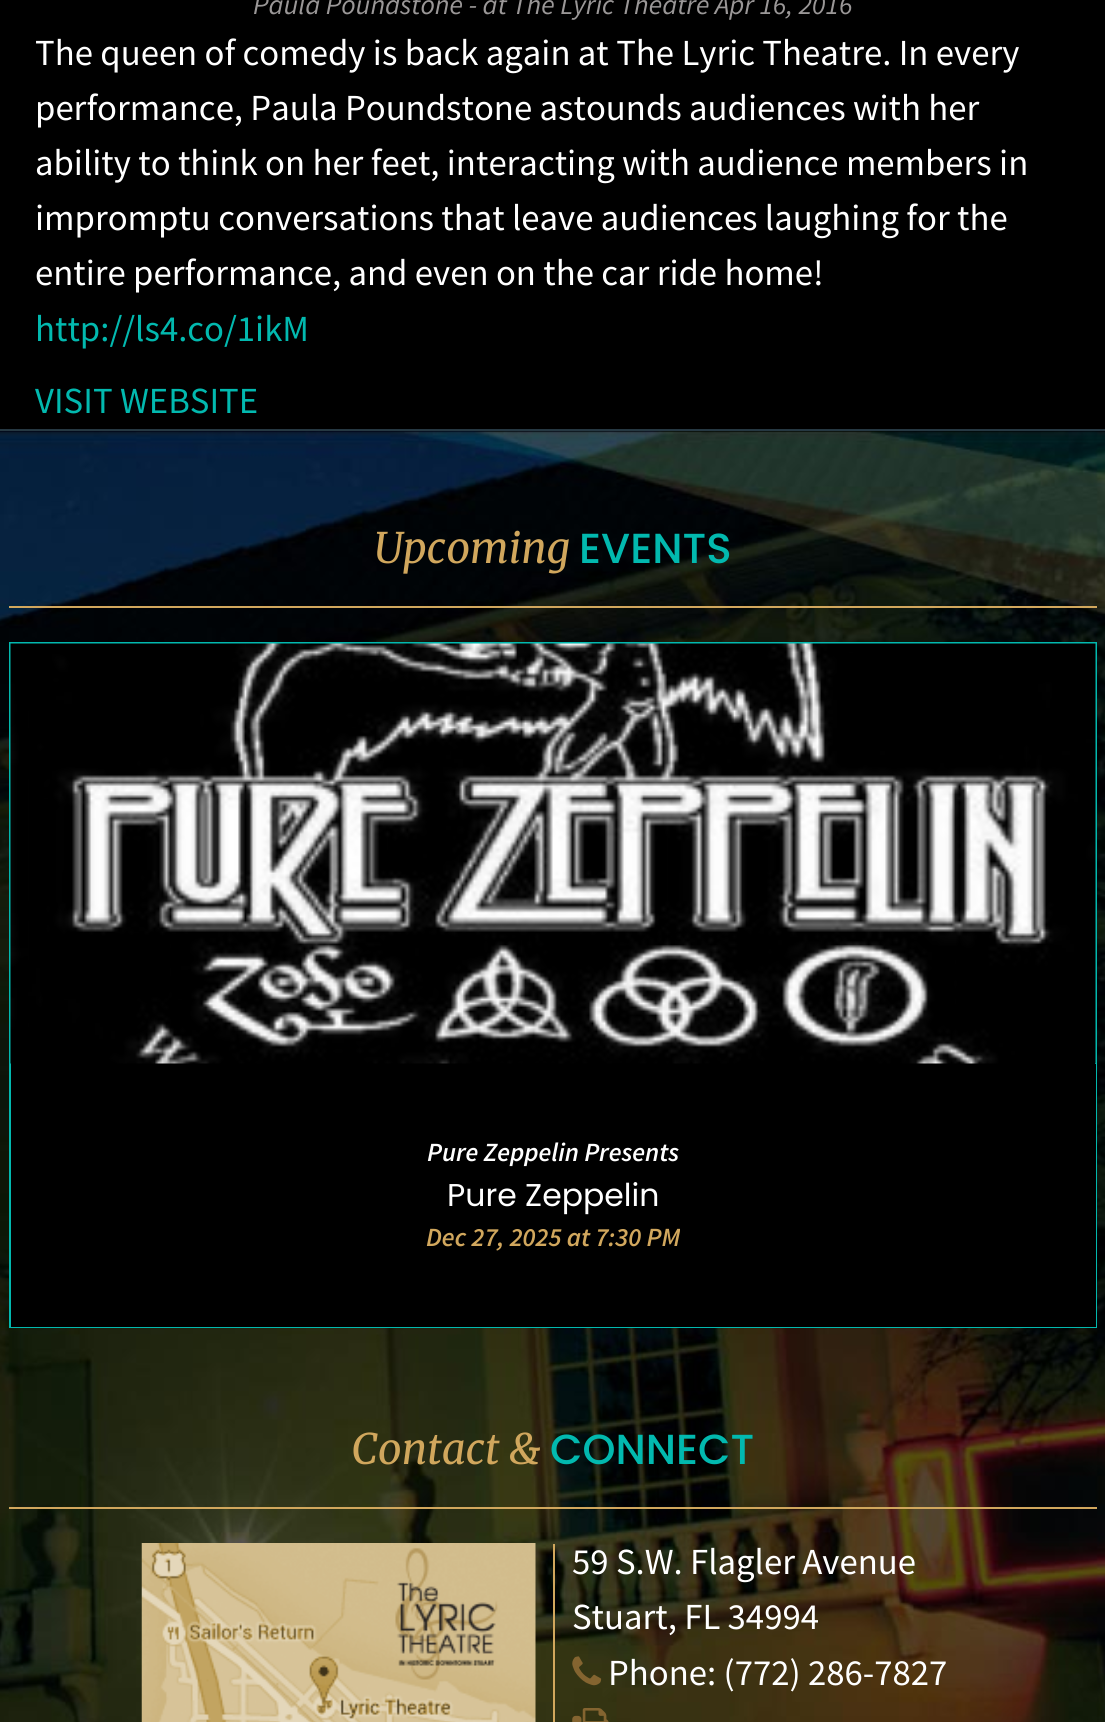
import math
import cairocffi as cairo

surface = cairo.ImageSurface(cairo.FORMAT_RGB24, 1105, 1722)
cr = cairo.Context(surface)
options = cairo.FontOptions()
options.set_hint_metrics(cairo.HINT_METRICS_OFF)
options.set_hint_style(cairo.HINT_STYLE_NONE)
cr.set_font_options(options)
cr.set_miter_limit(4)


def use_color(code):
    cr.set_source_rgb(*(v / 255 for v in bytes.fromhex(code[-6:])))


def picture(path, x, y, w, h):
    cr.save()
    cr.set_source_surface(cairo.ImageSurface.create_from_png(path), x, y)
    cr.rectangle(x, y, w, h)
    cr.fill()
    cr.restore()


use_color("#000000")
cr.paint()
cr.select_font_face("Source Sans Pro", cairo.FONT_SLANT_ITALIC)
cr.set_font_size(28)
use_color("#9a9797")
cr.move_to(253, 14)
cr.show_text("Paula Poundstone - at The Lyric Theatre Apr 16, 2016")
cr.select_font_face("Source Sans Pro")
cr.set_font_size(36.75)
use_color("#ffffff")
cr.move_to(35, 65)
cr.show_text("The queen of comedy is back again at The Lyric Theatre. In every")
cr.move_to(35, 120)
cr.show_text("performance, Paula Poundstone astounds audiences with her")
cr.move_to(35, 175)
cr.show_text("ability to think on her feet, interacting with audience members in")
cr.move_to(35, 230)
cr.show_text("impromptu conversations that leave audiences laughing for the")
cr.move_to(35, 285)
cr.show_text("entire performance, and even on the car ride home!")
use_color("#02b9af")
cr.move_to(35, 341)
cr.show_text("http://ls4.co/1ikM")
cr.move_to(35, 413)
cr.show_text("VISIT WEBSITE")
picture("img1.png", 0, 431, 1105, 1291)
use_color("#263842")
cr.rectangle(0, 429, 1105, 2)
cr.fill()
cr.select_font_face("Merriweather", cairo.FONT_SLANT_ITALIC)
cr.set_font_size(42)
use_color("#d1a75d")
cr.move_to(374, 563)
cr.show_text("Upcoming")
cr.select_font_face("Poppins Medium")
use_color("#02b9af")
cr.move_to(579, 563)
cr.show_text("EVENTS")
use_color("#d1a75d")
cr.rectangle(9, 606, 1088, 2)
cr.fill()
use_color("#000000")
cr.rectangle(11, 1063, 1084, 1)
cr.fill()
cr.rectangle(10, 643, 1086, 684)
use_color("#02b9af")
cr.stroke()
picture("img2.png", 10, 643, 1086, 421)
use_color("#000000")
cr.rectangle(11, 1064, 1085, 263)
cr.fill()
cr.select_font_face("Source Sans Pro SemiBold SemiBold", cairo.FONT_SLANT_ITALIC)
cr.set_font_size(26.25)
use_color("#ffffff")
cr.move_to(427, 1161)
cr.show_text("Pure Zeppelin Presents")
cr.select_font_face("Poppins")
cr.set_font_size(31.5)
cr.move_to(447, 1206)
cr.show_text("Pure Zeppelin")
cr.select_font_face("Source Sans Pro SemiBold SemiBold", cairo.FONT_SLANT_ITALIC)
cr.set_font_size(26.25)
use_color("#d1a75d")
cr.move_to(426, 1246)
cr.show_text("Dec 27, 2025 at 7:30 PM")
cr.select_font_face("Merriweather", cairo.FONT_SLANT_ITALIC)
cr.set_font_size(42)
cr.move_to(351, 1464)
cr.show_text("Contact &")
cr.select_font_face("Poppins Medium")
use_color("#02b9af")
cr.move_to(550, 1464)
cr.show_text("CONNECT")
use_color("#d1a75d")
cr.rectangle(9, 1507, 1088, 2)
cr.fill()
picture("img3.png", 141, 1543, 395, 179)
cr.rectangle(553, 1544, 2, 178)
cr.fill()
cr.select_font_face("Source Sans Pro")
cr.set_font_size(36.75)
use_color("#ffffff")
cr.move_to(572, 1574)
cr.show_text("59 S.W. Flagler Avenue")
cr.move_to(572, 1629)
cr.show_text("Stuart, FL 34994")
picture("img4.png", 572, 1656, 30, 30)
cr.move_to(608, 1685)
cr.show_text("Phone: (772) 286-7827")
picture("img5.png", 572, 1708, 37, 14)
surface.write_to_png("result.png")
